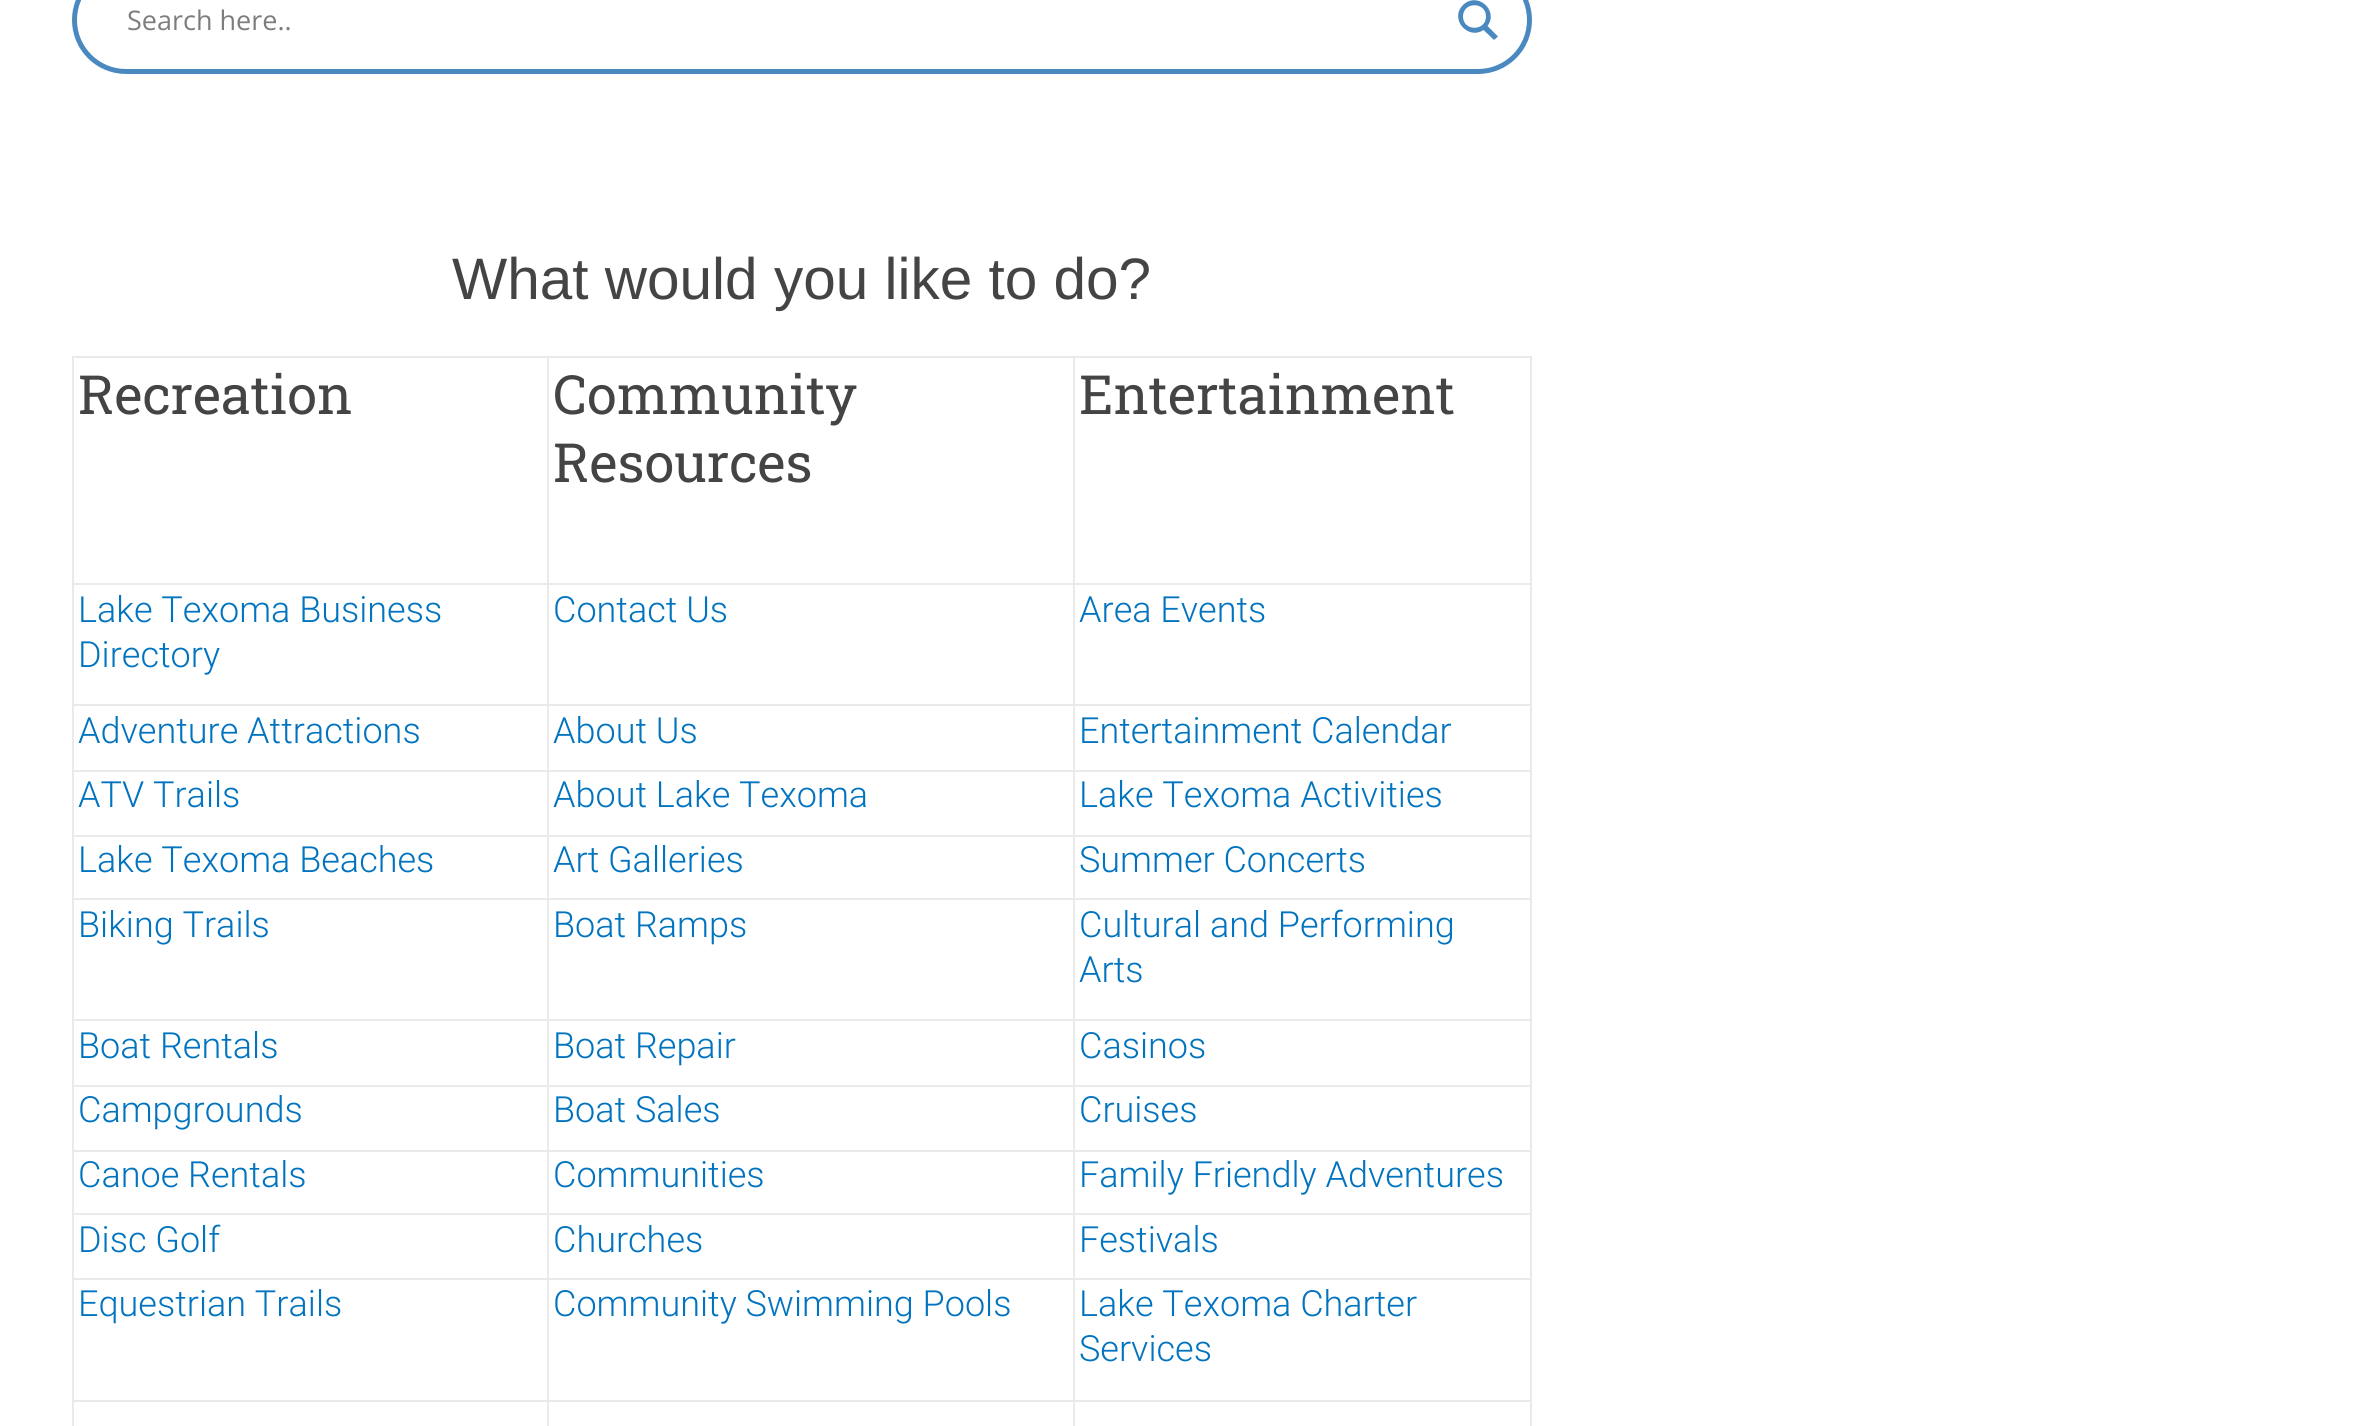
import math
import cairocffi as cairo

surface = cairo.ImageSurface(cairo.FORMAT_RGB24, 2373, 1426)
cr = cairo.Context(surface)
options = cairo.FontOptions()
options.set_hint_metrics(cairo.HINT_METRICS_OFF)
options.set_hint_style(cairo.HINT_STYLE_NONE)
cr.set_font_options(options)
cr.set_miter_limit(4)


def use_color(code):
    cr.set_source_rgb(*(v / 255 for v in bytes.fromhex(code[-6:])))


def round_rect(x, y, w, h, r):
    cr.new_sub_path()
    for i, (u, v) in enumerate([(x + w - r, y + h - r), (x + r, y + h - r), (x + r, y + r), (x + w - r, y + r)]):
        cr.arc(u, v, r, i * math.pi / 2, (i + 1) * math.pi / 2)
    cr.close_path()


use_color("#ffffff")
cr.paint()
round_rect(74.5, -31.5, 1455, 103, 51.5)
use_color("#4a89bf")
cr.set_line_width(5)
cr.stroke()
cr.select_font_face("Open Sans")
cr.set_font_size(27)
use_color("#7d7d7d")
cr.move_to(127, 30)
cr.show_text("Search here..")
use_color("#4a89bf")
cr.new_path()
cr.move_to(1498, 36.5)
cr.line_to(1487.5, 26)
cr.curve_to(1499, 10.5, 1477.5, -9, 1463, 5)
cr.curve_to(1449, 19, 1468, 40.5, 1483.5, 30)
cr.line_to(1494, 40)
cr.close_path()
cr.move_to(1463, 16.5)
cr.curve_to(1463, 1.5, 1486, 1.5, 1486, 16.5)
cr.curve_to(1486, 31.5, 1463, 31.5, 1463, 16.5)
cr.close_path()
cr.fill()
cr.select_font_face("Liberation Sans")
cr.set_font_size(58.5)
use_color("#444444")
cr.move_to(452, 299)
cr.show_text("What would you like to do?")
use_color("#eaeaea")
cr.rectangle(1073, 356, 459, 2)
cr.fill()
cr.rectangle(1073, 583, 459, 2)
cr.fill()
cr.rectangle(1073, 704, 459, 2)
cr.fill()
cr.rectangle(1073, 770, 459, 2)
cr.fill()
cr.rectangle(1073, 835, 459, 2)
cr.fill()
cr.rectangle(1073, 898, 459, 2)
cr.fill()
cr.rectangle(1073, 1019, 459, 2)
cr.fill()
cr.rectangle(1073, 1085, 459, 2)
cr.fill()
cr.rectangle(1073, 1150, 459, 2)
cr.fill()
cr.rectangle(1073, 1213, 459, 2)
cr.fill()
cr.rectangle(1073, 1278, 459, 2)
cr.fill()
cr.rectangle(1073, 1400, 459, 2)
cr.fill()
cr.rectangle(1073, 1400, 2, 26)
cr.fill()
cr.rectangle(547, 1400, 529, 2)
cr.fill()
cr.rectangle(1073, 1278, 2, 124)
cr.fill()
cr.rectangle(547, 1278, 529, 2)
cr.fill()
cr.rectangle(1073, 1213, 2, 67)
cr.fill()
cr.rectangle(547, 1213, 529, 2)
cr.fill()
cr.rectangle(1073, 1150, 2, 65)
cr.fill()
cr.rectangle(547, 1150, 529, 2)
cr.fill()
cr.rectangle(1073, 1085, 2, 67)
cr.fill()
cr.rectangle(547, 1085, 529, 2)
cr.fill()
cr.rectangle(1073, 1019, 2, 68)
cr.fill()
cr.rectangle(547, 1019, 529, 2)
cr.fill()
cr.rectangle(1073, 898, 2, 124)
cr.fill()
cr.rectangle(547, 898, 529, 2)
cr.fill()
cr.rectangle(1073, 835, 2, 65)
cr.fill()
cr.rectangle(547, 835, 529, 2)
cr.fill()
cr.rectangle(1073, 770, 2, 67)
cr.fill()
cr.rectangle(547, 770, 529, 2)
cr.fill()
cr.rectangle(1073, 704, 2, 68)
cr.fill()
cr.rectangle(547, 704, 529, 2)
cr.fill()
cr.rectangle(1073, 583, 2, 124)
cr.fill()
cr.rectangle(547, 583, 529, 2)
cr.fill()
cr.rectangle(1073, 356, 2, 229)
cr.fill()
cr.rectangle(547, 356, 529, 2)
cr.fill()
cr.rectangle(547, 1400, 2, 26)
cr.fill()
cr.rectangle(72, 1400, 477, 2)
cr.fill()
cr.rectangle(547, 1278, 2, 124)
cr.fill()
cr.rectangle(72, 1278, 477, 2)
cr.fill()
cr.rectangle(547, 1213, 2, 67)
cr.fill()
cr.rectangle(72, 1213, 477, 2)
cr.fill()
cr.rectangle(547, 1150, 2, 65)
cr.fill()
cr.rectangle(72, 1150, 477, 2)
cr.fill()
cr.rectangle(547, 1085, 2, 67)
cr.fill()
cr.rectangle(72, 1085, 477, 2)
cr.fill()
cr.rectangle(547, 1019, 2, 68)
cr.fill()
cr.rectangle(72, 1019, 477, 2)
cr.fill()
cr.rectangle(547, 898, 2, 124)
cr.fill()
cr.rectangle(72, 898, 477, 2)
cr.fill()
cr.rectangle(547, 835, 2, 65)
cr.fill()
cr.rectangle(72, 835, 477, 2)
cr.fill()
cr.rectangle(547, 770, 2, 67)
cr.fill()
cr.rectangle(72, 770, 477, 2)
cr.fill()
cr.rectangle(547, 704, 2, 68)
cr.fill()
cr.rectangle(72, 704, 477, 2)
cr.fill()
cr.rectangle(547, 583, 2, 124)
cr.fill()
cr.rectangle(72, 583, 477, 2)
cr.fill()
cr.rectangle(547, 356, 2, 229)
cr.fill()
cr.rectangle(72, 356, 477, 2)
cr.fill()
cr.rectangle(72, 1400, 2, 26)
cr.fill()
cr.rectangle(72, 1278, 2, 124)
cr.fill()
cr.rectangle(72, 1213, 2, 67)
cr.fill()
cr.rectangle(72, 1150, 2, 65)
cr.fill()
cr.rectangle(72, 1085, 2, 67)
cr.fill()
cr.rectangle(72, 1019, 2, 68)
cr.fill()
cr.rectangle(72, 898, 2, 124)
cr.fill()
cr.rectangle(72, 835, 2, 65)
cr.fill()
cr.rectangle(72, 770, 2, 67)
cr.fill()
cr.rectangle(72, 704, 2, 68)
cr.fill()
cr.rectangle(72, 583, 2, 124)
cr.fill()
cr.rectangle(72, 356, 2, 229)
cr.fill()
cr.select_font_face("Roboto Slab")
cr.set_font_size(54)
use_color("#444444")
cr.move_to(78, 414)
cr.show_text("Recreation")
cr.move_to(553, 414)
cr.show_text("Community")
cr.move_to(553, 482)
cr.show_text("Resources")
use_color("#eaeaea")
cr.rectangle(1530, 1400, 2, 26)
cr.fill()
cr.rectangle(1530, 1278, 2, 124)
cr.fill()
cr.rectangle(1530, 1213, 2, 67)
cr.fill()
cr.rectangle(1530, 1150, 2, 65)
cr.fill()
cr.rectangle(1530, 1085, 2, 67)
cr.fill()
cr.rectangle(1530, 1019, 2, 68)
cr.fill()
cr.rectangle(1530, 898, 2, 124)
cr.fill()
cr.rectangle(1530, 835, 2, 65)
cr.fill()
cr.rectangle(1530, 770, 2, 67)
cr.fill()
cr.rectangle(1530, 704, 2, 68)
cr.fill()
cr.rectangle(1530, 583, 2, 124)
cr.fill()
cr.rectangle(1530, 356, 2, 229)
cr.fill()
use_color("#444444")
cr.move_to(1079, 414)
cr.show_text("Entertainment")
cr.select_font_face("Roboto Light")
cr.set_font_size(36)
use_color("#0173bf")
cr.move_to(78, 622)
cr.show_text("Lake Texoma Business")
cr.move_to(78, 667)
cr.show_text("Directory")
cr.move_to(553, 622)
cr.show_text("Contact Us")
cr.move_to(1079, 622)
cr.show_text("Area Events")
cr.move_to(78, 743)
cr.show_text("Adventure Attractions")
cr.move_to(553, 743)
cr.show_text("About Us")
cr.move_to(1079, 743)
cr.show_text("Entertainment Calendar")
cr.move_to(78, 807)
cr.show_text("ATV Trails")
cr.move_to(553, 807)
cr.show_text("About Lake Texoma")
cr.move_to(1079, 807)
cr.show_text("Lake Texoma Activities")
cr.move_to(78, 872)
cr.show_text("Lake Texoma Beaches")
cr.move_to(553, 872)
cr.show_text("Art Galleries")
cr.move_to(1079, 872)
cr.show_text("Summer Concerts")
cr.move_to(78, 937)
cr.show_text("Biking Trails")
cr.move_to(553, 937)
cr.show_text("Boat Ramps")
cr.move_to(1079, 937)
cr.show_text("Cultural and Performing")
cr.move_to(1079, 982)
cr.show_text("Arts")
cr.move_to(78, 1058)
cr.show_text("Boat Rentals")
cr.move_to(553, 1058)
cr.show_text("Boat Repair")
cr.move_to(1079, 1058)
cr.show_text("Casinos")
cr.move_to(78, 1122)
cr.show_text("Campgrounds")
cr.move_to(553, 1122)
cr.show_text("Boat Sales")
cr.move_to(1079, 1122)
cr.show_text("Cruises")
cr.move_to(78, 1187)
cr.show_text("Canoe Rentals")
cr.move_to(553, 1187)
cr.show_text("Communities")
cr.move_to(1079, 1187)
cr.show_text("Family Friendly Adventures")
cr.move_to(78, 1252)
cr.show_text("Disc Golf")
cr.move_to(553, 1252)
cr.show_text("Churches")
cr.move_to(1079, 1252)
cr.show_text("Festivals")
cr.move_to(78, 1316)
cr.show_text("Equestrian Trails")
cr.move_to(553, 1316)
cr.show_text("Community Swimming Pools")
cr.move_to(1079, 1316)
cr.show_text("Lake Texoma Charter")
cr.move_to(1079, 1361)
cr.show_text("Services")
surface.write_to_png("result.png")
